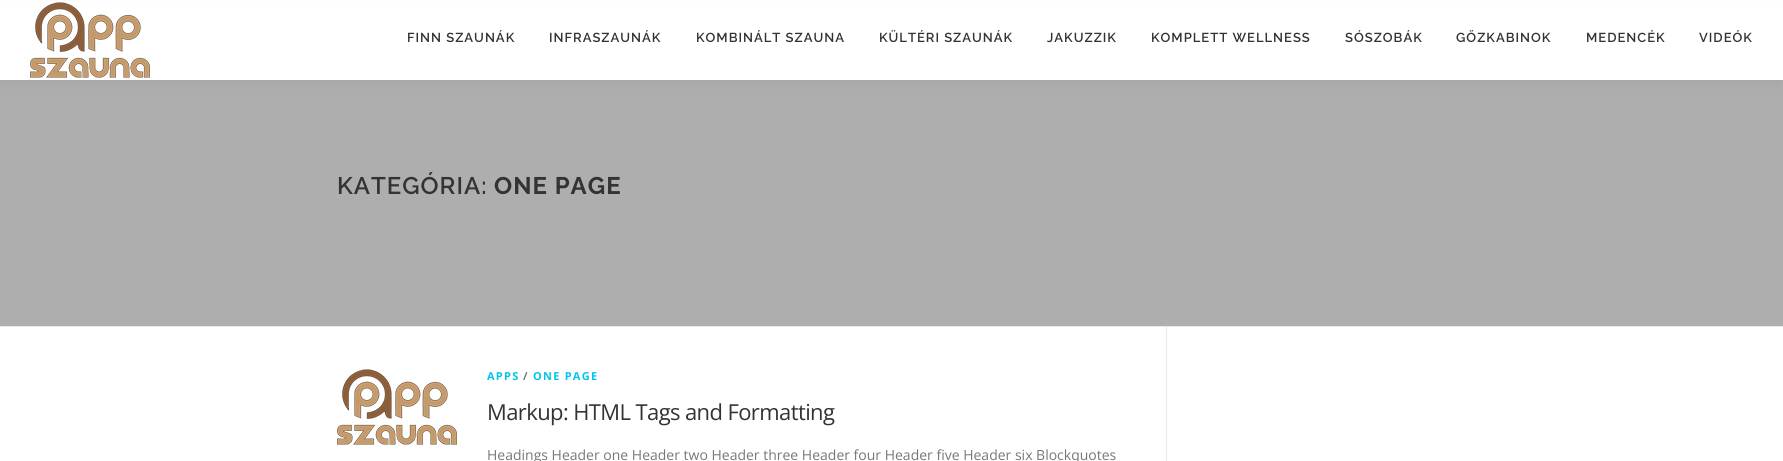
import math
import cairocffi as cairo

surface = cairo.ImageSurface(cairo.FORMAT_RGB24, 1783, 461)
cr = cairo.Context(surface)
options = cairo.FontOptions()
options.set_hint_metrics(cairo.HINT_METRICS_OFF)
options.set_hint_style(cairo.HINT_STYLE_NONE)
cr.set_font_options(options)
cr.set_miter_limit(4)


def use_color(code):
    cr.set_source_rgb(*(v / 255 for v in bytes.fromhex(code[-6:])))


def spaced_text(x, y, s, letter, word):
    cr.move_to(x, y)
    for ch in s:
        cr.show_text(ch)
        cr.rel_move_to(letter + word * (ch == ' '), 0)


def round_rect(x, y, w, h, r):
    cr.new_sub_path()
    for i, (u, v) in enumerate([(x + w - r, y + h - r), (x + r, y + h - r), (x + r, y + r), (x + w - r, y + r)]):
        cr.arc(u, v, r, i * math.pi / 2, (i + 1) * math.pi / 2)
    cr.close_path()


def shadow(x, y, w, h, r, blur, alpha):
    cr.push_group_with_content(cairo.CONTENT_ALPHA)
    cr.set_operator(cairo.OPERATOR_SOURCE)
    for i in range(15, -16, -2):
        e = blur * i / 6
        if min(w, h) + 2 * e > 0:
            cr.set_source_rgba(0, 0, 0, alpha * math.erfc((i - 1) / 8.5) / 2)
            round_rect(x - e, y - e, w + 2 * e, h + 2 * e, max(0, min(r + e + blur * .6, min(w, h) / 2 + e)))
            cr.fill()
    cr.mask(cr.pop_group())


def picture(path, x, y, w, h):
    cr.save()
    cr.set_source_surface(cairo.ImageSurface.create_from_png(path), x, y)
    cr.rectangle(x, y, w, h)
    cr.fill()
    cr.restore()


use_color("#ffffff")
cr.paint()
use_color("#aeaeae")
cr.rectangle(0, 80, 1783, 246)
cr.fill()
use_color("#323232")
shadow(0, 5, 1783, 80, 0, 5, 0.06)
use_color("#ffffff")
cr.rectangle(0, 1, 1783, 79)
cr.fill()
picture("img1.png", 30, 2, 120, 76)
cr.select_font_face("Raleway SemiBold")
cr.set_font_size(13)
use_color("#333333")
spaced_text(407, 42, "FINN SZAUNÁK", 1, 0)
spaced_text(549, 42, "INFRASZAUNÁK", 1, 0)
spaced_text(696, 42, "KOMBINÁLT SZAUNA", 1, 0)
spaced_text(879, 42, "KÜLTÉRI SZAUNÁK", 1, 0)
spaced_text(1047, 42, "JAKUZZIK", 1, 0)
spaced_text(1151, 42, "KOMPLETT WELLNESS", 1, 0)
spaced_text(1345, 42, "SÓSZOBÁK", 1, 0)
spaced_text(1456, 42, "GŐZKABINOK", 1, 0)
spaced_text(1586, 42, "MEDENCÉK", 1, 0)
spaced_text(1699, 42, "VIDEÓK", 1, 0)
use_color("#e9e9e9")
cr.rectangle(0, 326, 1783, 1)
cr.fill()
cr.set_font_size(24)
use_color("#333333")
spaced_text(337, 194, "KATEGÓRIA:", 1, 0)
cr.select_font_face("Raleway", cairo.FONT_SLANT_NORMAL, cairo.FONT_WEIGHT_BOLD)
spaced_text(494, 194, "ONE PAGE", 1, 0)
use_color("#e9e9e9")
cr.rectangle(1166, 327, 1, 134)
cr.fill()
picture("img1.png", 337, 369, 120, 76)
cr.select_font_face("Open Sans", cairo.FONT_SLANT_NORMAL, cairo.FONT_WEIGHT_BOLD)
cr.set_font_size(11)
use_color("#03c4eb")
spaced_text(487, 380, "APPS", 1.25, 0)
use_color("#777777")
spaced_text(523, 380, "/", 1.25, 0)
use_color("#03c4eb")
spaced_text(533, 380, "ONE PAGE", 1.25, 0)
cr.select_font_face("Open Sans")
cr.set_font_size(22)
use_color("#333333")
spaced_text(487, 420, "Markup: HTML Tags and Formatting", -0.6, 0)
cr.set_font_size(14)
use_color("#777777")
cr.move_to(487, 460)
cr.show_text("Headings Header one Header two Header three Header four Header five Header six Blockquotes")
surface.write_to_png("result.png")
